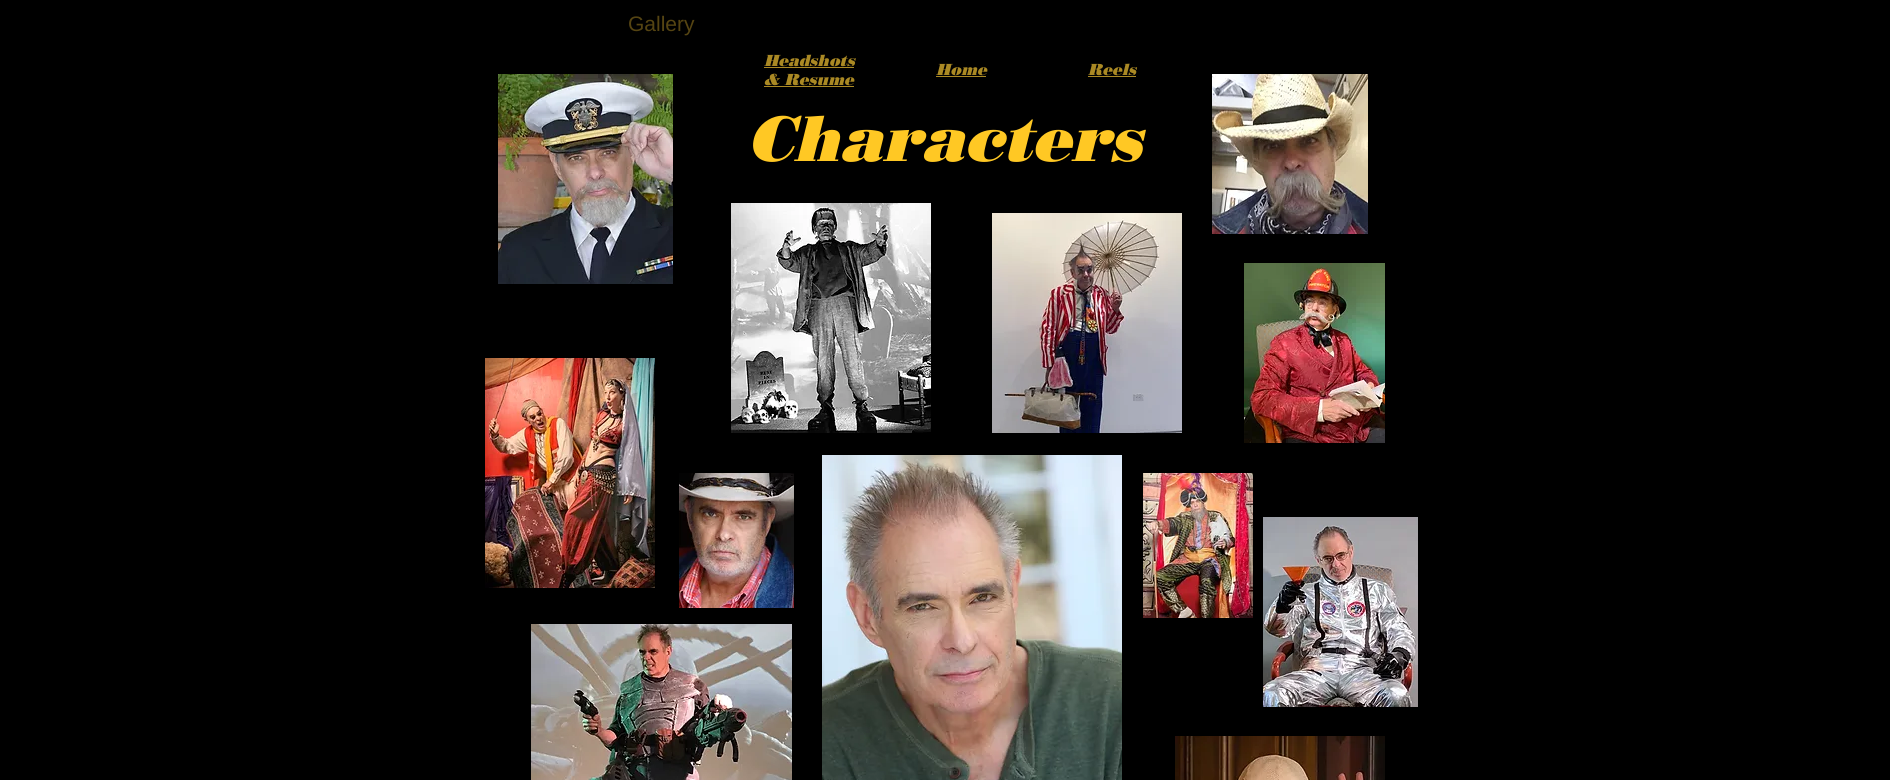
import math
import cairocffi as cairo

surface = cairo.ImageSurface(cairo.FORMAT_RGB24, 1890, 780)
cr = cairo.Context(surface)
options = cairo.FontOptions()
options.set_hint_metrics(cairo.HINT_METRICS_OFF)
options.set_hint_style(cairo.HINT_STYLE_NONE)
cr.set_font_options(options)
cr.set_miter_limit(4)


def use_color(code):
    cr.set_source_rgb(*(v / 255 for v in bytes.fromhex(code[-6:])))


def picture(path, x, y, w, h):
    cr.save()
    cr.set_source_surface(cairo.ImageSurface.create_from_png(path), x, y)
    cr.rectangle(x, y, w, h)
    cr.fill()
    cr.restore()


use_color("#000000")
cr.paint()
cr.select_font_face("Liberation Sans")
cr.set_font_size(21)
use_color("#554412")
cr.move_to(628, 31)
cr.show_text("Gallery")
cr.select_font_face("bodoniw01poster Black", cairo.FONT_SLANT_ITALIC)
cr.set_font_size(16)
use_color("#aa8924")
cr.move_to(764, 66)
cr.show_text("Headshots")
cr.rectangle(764, 67, 90, 1)
cr.fill()
cr.move_to(764, 85)
cr.show_text("& Resume")
cr.rectangle(764, 86, 90, 1)
cr.fill()
cr.move_to(936, 75)
cr.show_text("Home")
cr.rectangle(936, 76, 50, 1)
cr.fill()
cr.move_to(1088, 75)
cr.show_text("Reels")
cr.rectangle(1088, 76, 48, 1)
cr.fill()
picture("img1.png", 498, 74, 175, 210)
cr.set_font_size(64)
use_color("#ffc824")
cr.move_to(747, 161)
cr.show_text("Characters")
picture("img2.png", 1212, 74, 156, 160)
picture("img3.png", 485, 358, 170, 230)
picture("img4.png", 731, 203, 200, 230)
picture("img5.png", 992, 213, 190, 220)
picture("img6.png", 1244, 263, 141, 180)
picture("img7.png", 679, 473, 115, 135)
picture("img8.png", 822, 455, 300, 325)
picture("img9.png", 1143, 473, 110, 145)
picture("img10.png", 1263, 517, 155, 190)
picture("img11.png", 531, 624, 261, 156)
picture("img12.png", 1175, 736, 210, 44)
surface.write_to_png("result.png")
